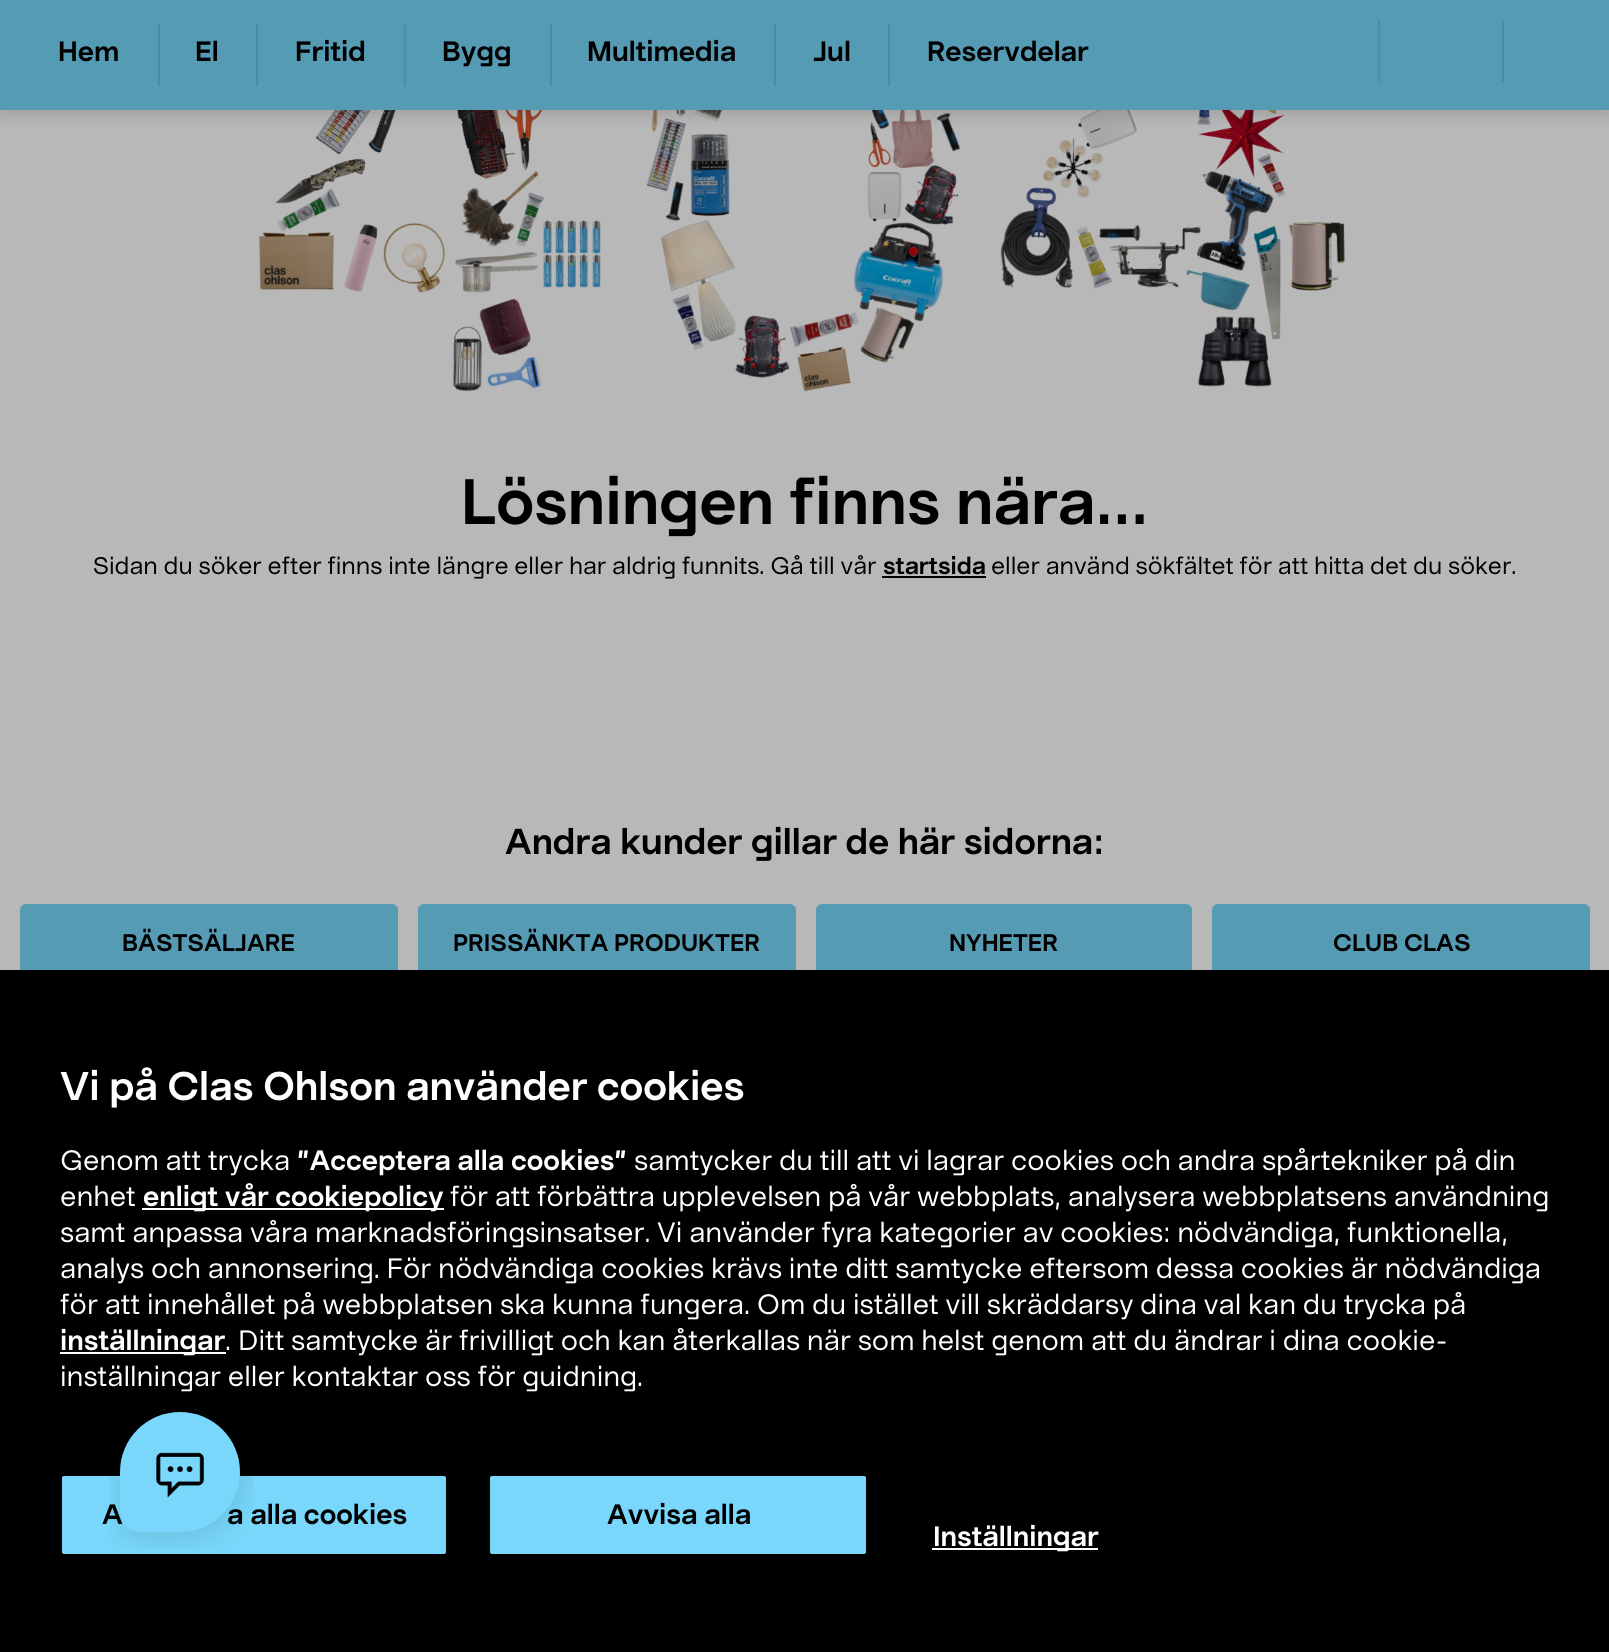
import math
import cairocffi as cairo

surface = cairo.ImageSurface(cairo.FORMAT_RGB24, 1609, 1652)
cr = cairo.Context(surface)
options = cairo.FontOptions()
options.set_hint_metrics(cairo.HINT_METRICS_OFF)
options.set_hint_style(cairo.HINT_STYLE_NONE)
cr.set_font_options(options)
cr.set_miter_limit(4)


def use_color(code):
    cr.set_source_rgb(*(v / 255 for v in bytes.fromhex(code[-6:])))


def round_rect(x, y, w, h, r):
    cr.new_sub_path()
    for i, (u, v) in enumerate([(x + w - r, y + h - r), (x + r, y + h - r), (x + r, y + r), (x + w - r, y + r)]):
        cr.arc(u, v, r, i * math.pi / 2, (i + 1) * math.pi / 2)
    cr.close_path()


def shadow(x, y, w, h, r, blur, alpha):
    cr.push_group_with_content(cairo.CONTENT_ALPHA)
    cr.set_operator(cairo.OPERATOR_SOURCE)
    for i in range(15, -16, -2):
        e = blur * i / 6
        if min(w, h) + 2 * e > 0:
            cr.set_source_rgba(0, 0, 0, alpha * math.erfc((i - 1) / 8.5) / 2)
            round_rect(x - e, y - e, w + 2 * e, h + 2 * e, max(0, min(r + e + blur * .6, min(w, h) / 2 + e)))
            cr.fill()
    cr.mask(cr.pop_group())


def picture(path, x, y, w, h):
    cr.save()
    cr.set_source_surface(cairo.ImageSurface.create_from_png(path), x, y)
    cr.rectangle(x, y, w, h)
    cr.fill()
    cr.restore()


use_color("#b8b8b8")
cr.paint()
picture("img1.png", 258, 110, 1087, 282)
use_color("#000000")
shadow(0, 6, 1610, 110, 0, 7, 0.13)
use_color("#569bb4")
cr.rectangle(0, 0, 1609, 110)
cr.fill()
cr.select_font_face("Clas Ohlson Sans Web", cairo.FONT_SLANT_NORMAL, cairo.FONT_WEIGHT_BOLD)
cr.set_font_size(28)
use_color("#000000")
cr.move_to(58, 61)
cr.show_text("Hem")
use_color("#4e8ca3")
cr.rectangle(158, 24, 2, 62)
cr.fill()
use_color("#000000")
cr.move_to(195, 61)
cr.show_text("El")
use_color("#4e8ca3")
cr.rectangle(256, 24, 2, 62)
cr.fill()
use_color("#000000")
cr.move_to(295, 61)
cr.show_text("Fritid")
use_color("#4e8ca3")
cr.rectangle(404, 24, 2, 62)
cr.fill()
use_color("#000000")
cr.move_to(442, 61)
cr.show_text("Bygg")
use_color("#4e8ca3")
cr.rectangle(550, 24, 2, 62)
cr.fill()
use_color("#000000")
cr.move_to(587, 61)
cr.show_text("Multimedia")
use_color("#4e8ca3")
cr.rectangle(774, 24, 2, 62)
cr.fill()
use_color("#000000")
cr.move_to(813, 61)
cr.show_text("Jul")
use_color("#4e8ca3")
cr.rectangle(888, 24, 2, 62)
cr.fill()
use_color("#000000")
cr.move_to(927, 61)
cr.show_text("Reservdelar")
use_color("#4e8ca3")
cr.rectangle(1378, 20, 2, 62)
cr.fill()
cr.rectangle(1502, 20, 2, 62)
cr.fill()
cr.set_font_size(64)
use_color("#000000")
cr.move_to(461, 524)
cr.show_text("Lösningen finns nära...")
cr.select_font_face("Clas Ohlson Sans Web")
cr.set_font_size(24)
cr.move_to(93, 574)
cr.show_text("Sidan du söker efter finns inte längre eller har aldrig funnits. Gå till vår")
cr.select_font_face("Clas Ohlson Sans Web", cairo.FONT_SLANT_NORMAL, cairo.FONT_WEIGHT_BOLD)
cr.move_to(883, 574)
cr.show_text("startsida")
cr.rectangle(882, 576, 104, 2)
cr.fill()
cr.select_font_face("Clas Ohlson Sans Web")
cr.move_to(991, 574)
cr.show_text("eller använd sökfältet för att hitta det du söker.")
cr.select_font_face("Clas Ohlson Sans Web", cairo.FONT_SLANT_NORMAL, cairo.FONT_WEIGHT_BOLD)
cr.set_font_size(36)
cr.move_to(505, 854)
cr.show_text("Andra kunder gillar de här sidorna:")
use_color("#569bb4")
round_rect(21, 905, 376, 78, 5)
cr.fill_preserve()
cr.stroke()
cr.set_font_size(24)
use_color("#000000")
cr.move_to(122, 951)
cr.show_text("BÄSTSÄLJARE")
use_color("#569bb4")
round_rect(419, 905, 376, 78, 5)
cr.fill_preserve()
cr.stroke()
use_color("#000000")
cr.move_to(453, 951)
cr.show_text("PRISSÄNKTA PRODUKTER")
use_color("#569bb4")
round_rect(817, 905, 374, 78, 5)
cr.fill_preserve()
cr.stroke()
use_color("#000000")
cr.move_to(949, 951)
cr.show_text("NYHETER")
use_color("#569bb4")
round_rect(1213, 905, 376, 78, 5)
cr.fill_preserve()
cr.stroke()
use_color("#000000")
cr.move_to(1333, 951)
cr.show_text("CLUB CLAS")
cr.rectangle(0, 970, 1609, 682)
cr.fill()
cr.set_font_size(40)
use_color("#ffffff")
cr.move_to(60, 1100)
cr.show_text("Vi på Clas Ohlson använder cookies")
cr.select_font_face("Clas Ohlson Sans Web")
cr.set_font_size(28)
cr.move_to(60, 1170)
cr.show_text("Genom att trycka")
cr.select_font_face("Clas Ohlson Sans Web", cairo.FONT_SLANT_NORMAL, cairo.FONT_WEIGHT_BOLD)
cr.move_to(297, 1170)
cr.show_text("”Acceptera alla cookies”")
cr.select_font_face("Clas Ohlson Sans Web")
cr.move_to(634, 1170)
cr.show_text("samtycker du till att vi lagrar cookies och andra spårtekniker på din")
cr.move_to(60, 1206)
cr.show_text("enhet")
cr.rectangle(142, 1208, 302, 2)
cr.fill()
cr.select_font_face("Clas Ohlson Sans Web", cairo.FONT_SLANT_NORMAL, cairo.FONT_WEIGHT_BOLD)
cr.move_to(143, 1206)
cr.show_text("enligt vår cookiepolicy")
cr.select_font_face("Clas Ohlson Sans Web")
cr.move_to(450, 1206)
cr.show_text("för att förbättra upplevelsen på vår webbplats, analysera webbplatsens användning")
cr.move_to(60, 1242)
cr.show_text("samt anpassa våra marknadsföringsinsatser. Vi använder fyra kategorier av cookies: nödvändiga, funktionella,")
cr.move_to(60, 1278)
cr.show_text("analys och annonsering. För nödvändiga cookies krävs inte ditt samtycke eftersom dessa cookies är nödvändiga")
cr.move_to(60, 1314)
cr.show_text("för att innehållet på webbplatsen ska kunna fungera. Om du istället vill skräddarsy dina val kan du trycka på")
cr.rectangle(60, 1352, 166, 2)
cr.fill()
cr.select_font_face("Clas Ohlson Sans Web", cairo.FONT_SLANT_NORMAL, cairo.FONT_WEIGHT_BOLD)
cr.move_to(60, 1350)
cr.show_text("inställningar")
cr.select_font_face("Clas Ohlson Sans Web")
cr.move_to(225, 1350)
cr.show_text(". Ditt samtycke är frivilligt och kan återkallas när som helst genom att du ändrar i dina cookie-")
cr.move_to(60, 1386)
cr.show_text("inställningar eller kontaktar oss för guidning.")
use_color("#78d7fa")
round_rect(61, 1475, 386, 80, 3)
cr.fill_preserve()
use_color("#000000")
cr.stroke()
cr.select_font_face("Clas Ohlson Sans Web", cairo.FONT_SLANT_NORMAL, cairo.FONT_WEIGHT_BOLD)
cr.move_to(102, 1524)
cr.show_text("A")
cr.move_to(227, 1524)
cr.show_text("a alla cookies")
use_color("#78d7fa")
round_rect(489, 1475, 378, 80, 3)
cr.fill_preserve()
use_color("#000000")
cr.stroke()
cr.move_to(607, 1524)
cr.show_text("Avvisa alla")
use_color("#ffffff")
cr.rectangle(932, 1548, 166, 2)
cr.fill()
cr.move_to(933, 1546)
cr.show_text("Inställningar")
picture("img2.png", 109, 1412, 145, 137)
surface.write_to_png("result.png")
